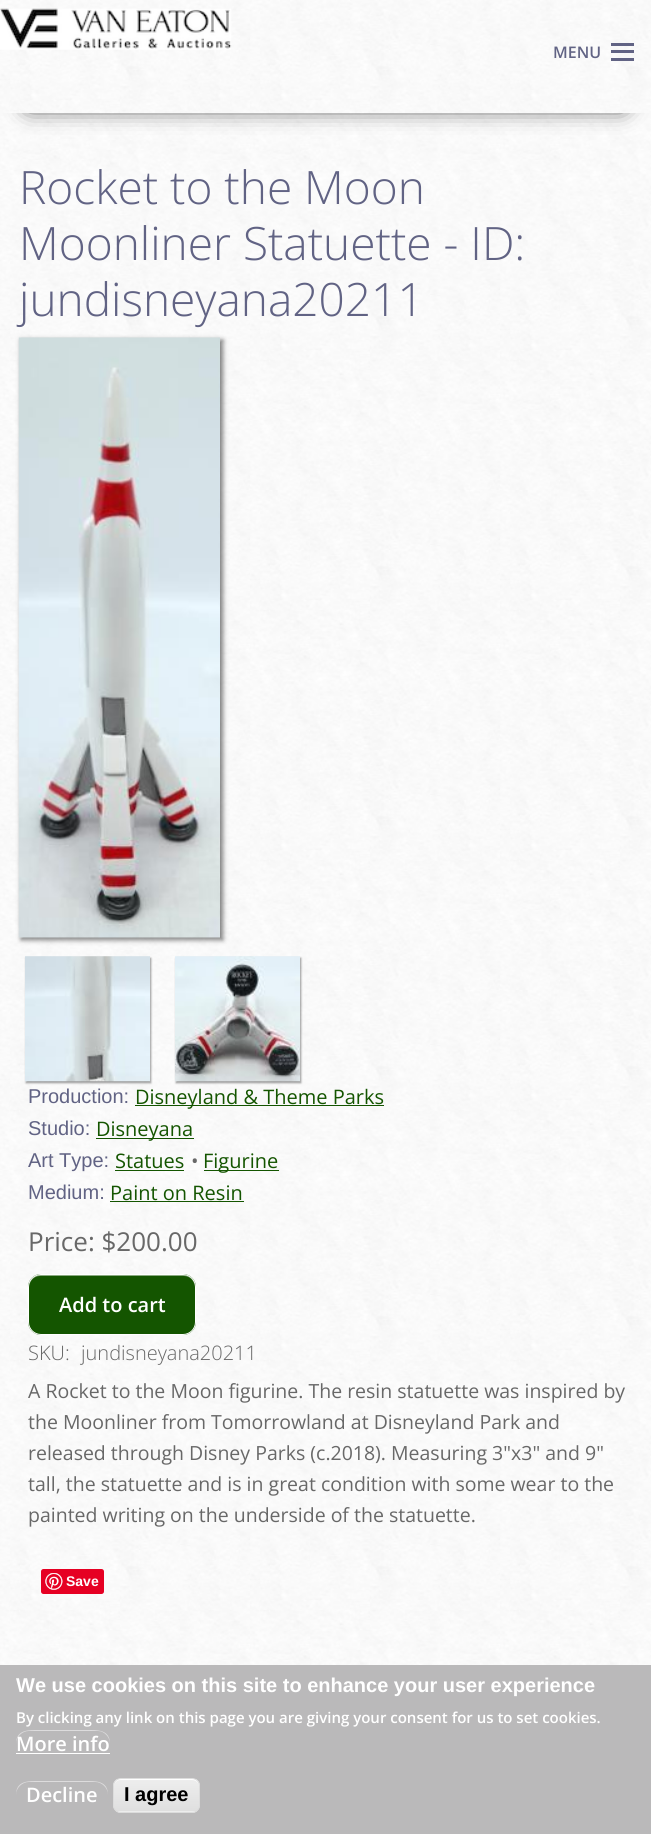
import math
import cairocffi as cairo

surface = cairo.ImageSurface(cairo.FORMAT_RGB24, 651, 1834)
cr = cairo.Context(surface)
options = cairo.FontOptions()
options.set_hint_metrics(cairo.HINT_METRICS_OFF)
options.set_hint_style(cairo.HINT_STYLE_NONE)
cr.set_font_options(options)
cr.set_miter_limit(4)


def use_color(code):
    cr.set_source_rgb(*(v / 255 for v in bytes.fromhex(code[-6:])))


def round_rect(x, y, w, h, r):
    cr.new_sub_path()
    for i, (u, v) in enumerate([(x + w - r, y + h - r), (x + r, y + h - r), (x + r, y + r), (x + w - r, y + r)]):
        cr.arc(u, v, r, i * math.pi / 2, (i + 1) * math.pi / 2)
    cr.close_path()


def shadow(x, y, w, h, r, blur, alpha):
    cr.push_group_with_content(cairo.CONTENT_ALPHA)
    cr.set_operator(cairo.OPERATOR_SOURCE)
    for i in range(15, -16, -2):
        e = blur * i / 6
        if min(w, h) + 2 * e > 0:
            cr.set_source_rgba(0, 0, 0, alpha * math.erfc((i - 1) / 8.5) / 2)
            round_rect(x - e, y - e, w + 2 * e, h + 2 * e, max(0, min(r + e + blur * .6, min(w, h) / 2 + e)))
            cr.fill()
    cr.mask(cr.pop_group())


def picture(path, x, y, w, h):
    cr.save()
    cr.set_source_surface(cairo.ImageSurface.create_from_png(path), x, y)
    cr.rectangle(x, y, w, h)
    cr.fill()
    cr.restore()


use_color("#ffffff")
cr.paint()
picture("img1.png", 0, 0, 651, 1665)
cr.save()
cr.set_fill_rule(cairo.FILL_RULE_EVEN_ODD)
cr.new_path()
cr.move_to(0, 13)
cr.line_to(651, 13)
cr.line_to(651, 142)
cr.line_to(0, 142)
cr.close_path()
cr.move_to(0, 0)
cr.line_to(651, 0)
cr.line_to(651, 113)
cr.line_to(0, 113)
cr.close_path()
cr.clip()
use_color("#000000")
shadow(29, 50, 594, 55, 0, 12, 1)
cr.restore()
picture("img2.png", 19, 112, 614, 1)
picture("img3.png", 0, 8, 232, 42)
use_color("#616384")
cr.rectangle(611, 58, 23, 3)
cr.fill()
cr.rectangle(611, 50, 23, 3)
cr.fill()
cr.rectangle(611, 43, 23, 3)
cr.fill()
cr.select_font_face("Open Sans SemiBold")
cr.set_font_size(16)
cr.move_to(553, 58)
cr.show_text("MENU")
cr.select_font_face("Open Sans Light")
cr.set_font_size(46)
cr.move_to(19, 204)
cr.show_text("Rocket to the Moon")
cr.move_to(19, 260)
cr.show_text("Moonliner Statuette - ID:")
cr.move_to(19, 316)
cr.show_text("jundisneyana20211")
use_color("#000000")
shadow(21, 340, 202, 600, 0, 2.5, 0.5)
picture("img4.png", 18, 337, 202, 601)
shadow(26, 958, 125, 125, 0, 1, 0.4)
picture("img5.png", 25, 956, 125, 126)
shadow(176, 958, 125, 125, 0, 1, 0.4)
picture("img6.png", 175, 956, 125, 126)
cr.select_font_face("Liberation Sans")
cr.set_font_size(20)
use_color("#616384")
cr.move_to(28, 1103)
cr.show_text("Production:")
use_color("#145500")
cr.rectangle(135, 1105, 249, 1)
cr.fill()
cr.select_font_face("Open Sans")
cr.move_to(135, 1104)
cr.show_text("Disneyland & Theme Parks")
cr.select_font_face("Liberation Sans")
use_color("#616384")
cr.move_to(28, 1135)
cr.show_text("Studio:")
use_color("#145500")
cr.rectangle(96, 1138, 98, 1)
cr.fill()
cr.select_font_face("Open Sans")
cr.move_to(96, 1136)
cr.show_text("Disneyana")
cr.select_font_face("Liberation Sans")
use_color("#616384")
cr.move_to(28, 1167)
cr.show_text("Art Type:")
cr.select_font_face("Open Sans")
use_color("#145500")
cr.move_to(115, 1168)
cr.show_text("Statues")
cr.rectangle(115, 1170, 69, 1)
cr.fill()
use_color("#686868")
cr.move_to(191, 1168)
cr.show_text("•")
use_color("#145500")
cr.rectangle(204, 1170, 75, 1)
cr.fill()
cr.move_to(203, 1168)
cr.show_text("Figurine")
cr.select_font_face("Liberation Sans")
use_color("#616384")
cr.move_to(28, 1199)
cr.show_text("Medium:")
cr.select_font_face("Open Sans")
use_color("#145500")
cr.move_to(110, 1200)
cr.show_text("Paint on Resin")
cr.rectangle(110, 1201, 134, 1)
cr.fill()
cr.set_font_size(26)
use_color("#686868")
cr.move_to(28, 1251)
cr.show_text("Price: $200.00")
use_color("#145500")
round_rect(28, 1274, 168, 61, 13)
cr.fill()
use_color("#8aaa80")
cr.new_path()
cr.move_to(40, 1276)
cr.line_to(184, 1276)
cr.curve_to(190, 1276, 195, 1281, 195, 1288)
cr.curve_to(195, 1269, 173, 1275, 160, 1275)
cr.line_to(64, 1275)
cr.curve_to(51, 1275, 29, 1269, 29, 1288)
cr.curve_to(29, 1281, 34, 1276, 40, 1276)
cr.close_path()
cr.fill()
round_rect(28.5, 1274.5, 167, 60, 12.5)
use_color("#ffffff")
cr.set_line_width(1)
cr.stroke()
cr.select_font_face("Open Sans SemiBold")
cr.set_font_size(20)
cr.move_to(59, 1312)
cr.show_text("Add to cart")
cr.select_font_face("Open Sans Light")
use_color("#686868")
cr.move_to(28, 1360)
cr.show_text("SKU:")
cr.move_to(81, 1360)
cr.show_text("jundisneyana20211")
cr.select_font_face("Open Sans")
cr.set_font_size(19.5)
cr.move_to(28, 1398)
cr.show_text("A Rocket to the Moon figurine. The resin statuette was inspired by")
cr.move_to(28, 1429)
cr.show_text("the Moonliner from Tomorrowland at Disneyland Park and")
cr.move_to(28, 1460)
cr.show_text("released through Disney Parks (c.2018). Measuring 3\"x3\" and 9\"")
cr.move_to(28, 1491)
cr.show_text("tall, the statuette and is in great condition with some wear to the")
cr.move_to(28, 1522)
cr.show_text("painted writing on the underside of the statuette.")
use_color("#e60023")
round_rect(41, 1569, 63, 25, 2.5)
cr.fill()
picture("img7.png", 45, 1573, 18, 17)
cr.select_font_face("Liberation Sans", cairo.FONT_SLANT_NORMAL, cairo.FONT_WEIGHT_BOLD)
cr.set_font_size(14)
use_color("#ffffff")
cr.move_to(66, 1586)
cr.show_text("Save")
use_color("#bab9ba")
cr.rectangle(0, 1665, 651, 169)
cr.fill()
cr.set_font_size(20)
use_color("#ffffff")
cr.move_to(16, 1692)
cr.show_text("We use cookies on this site to enhance your user experience")
cr.select_font_face("Open Sans SemiBold")
cr.set_font_size(15)
cr.move_to(16, 1723)
cr.show_text("By clicking any link on this page you are giving your consent for us to set cookies.")
use_color("#dddcdd")
cr.new_path()
cr.move_to(29, 1731)
cr.line_to(98, 1731)
cr.curve_to(104, 1731, 110, 1737, 110, 1744)
cr.curve_to(110, 1729, 97, 1730, 86, 1730)
cr.line_to(40, 1730)
cr.curve_to(29, 1730, 16, 1729, 16, 1744)
cr.curve_to(16, 1737, 22, 1731, 29, 1731)
cr.close_path()
cr.fill()
cr.set_font_size(20)
use_color("#ffffff")
cr.move_to(16, 1751)
cr.show_text("More info")
cr.rectangle(16, 1753, 94, 1)
cr.fill()
use_color("#dddcdd")
cr.new_path()
cr.move_to(29, 1782)
cr.line_to(95, 1782)
cr.curve_to(102, 1782, 108, 1788, 108, 1795)
cr.curve_to(108, 1780, 95, 1781, 84, 1781)
cr.line_to(40, 1781)
cr.curve_to(29, 1781, 16, 1780, 16, 1795)
cr.curve_to(16, 1788, 22, 1782, 29, 1782)
cr.close_path()
cr.fill()
use_color("#ffffff")
cr.move_to(26, 1802)
cr.show_text("Decline")
cr.save()
round_rect(113, 1778, 87, 35, 8)
cr.clip()
gradient = cairo.LinearGradient(156, 1779, 156, 1811)
gradient.add_color_stop_rgba(0.05, 0.929, 0.929, 0.929, 1)
gradient.add_color_stop_rgba(1, 0.875, 0.875, 0.875, 1)
cr.set_source(gradient)
cr.rectangle(113, 1779, 87, 32)
cr.fill()
gradient = cairo.LinearGradient(156, 1811, 156, 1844)
gradient.add_color_stop_rgba(0.05, 0.929, 0.929, 0.929, 1)
gradient.add_color_stop_rgba(1, 0.875, 0.875, 0.875, 1)
cr.set_source(gradient)
cr.rectangle(113, 1811, 87, 2)
cr.fill()
cr.restore()
cr.new_path()
cr.move_to(120, 1780)
cr.line_to(192, 1780)
cr.curve_to(196, 1780, 199, 1783, 199, 1786)
cr.curve_to(199, 1776, 188, 1779, 181, 1779)
cr.line_to(132, 1779)
cr.curve_to(125, 1779, 114, 1776, 114, 1786)
cr.curve_to(114, 1783, 117, 1780, 120, 1780)
cr.close_path()
cr.fill()
round_rect(113.5, 1778.5, 86, 34, 7.5)
use_color("#dcdcdc")
cr.stroke()
cr.select_font_face("Liberation Sans", cairo.FONT_SLANT_NORMAL, cairo.FONT_WEIGHT_BOLD)
use_color("#000000")
cr.move_to(124, 1801)
cr.show_text("I agree")
surface.write_to_png("result.png")
